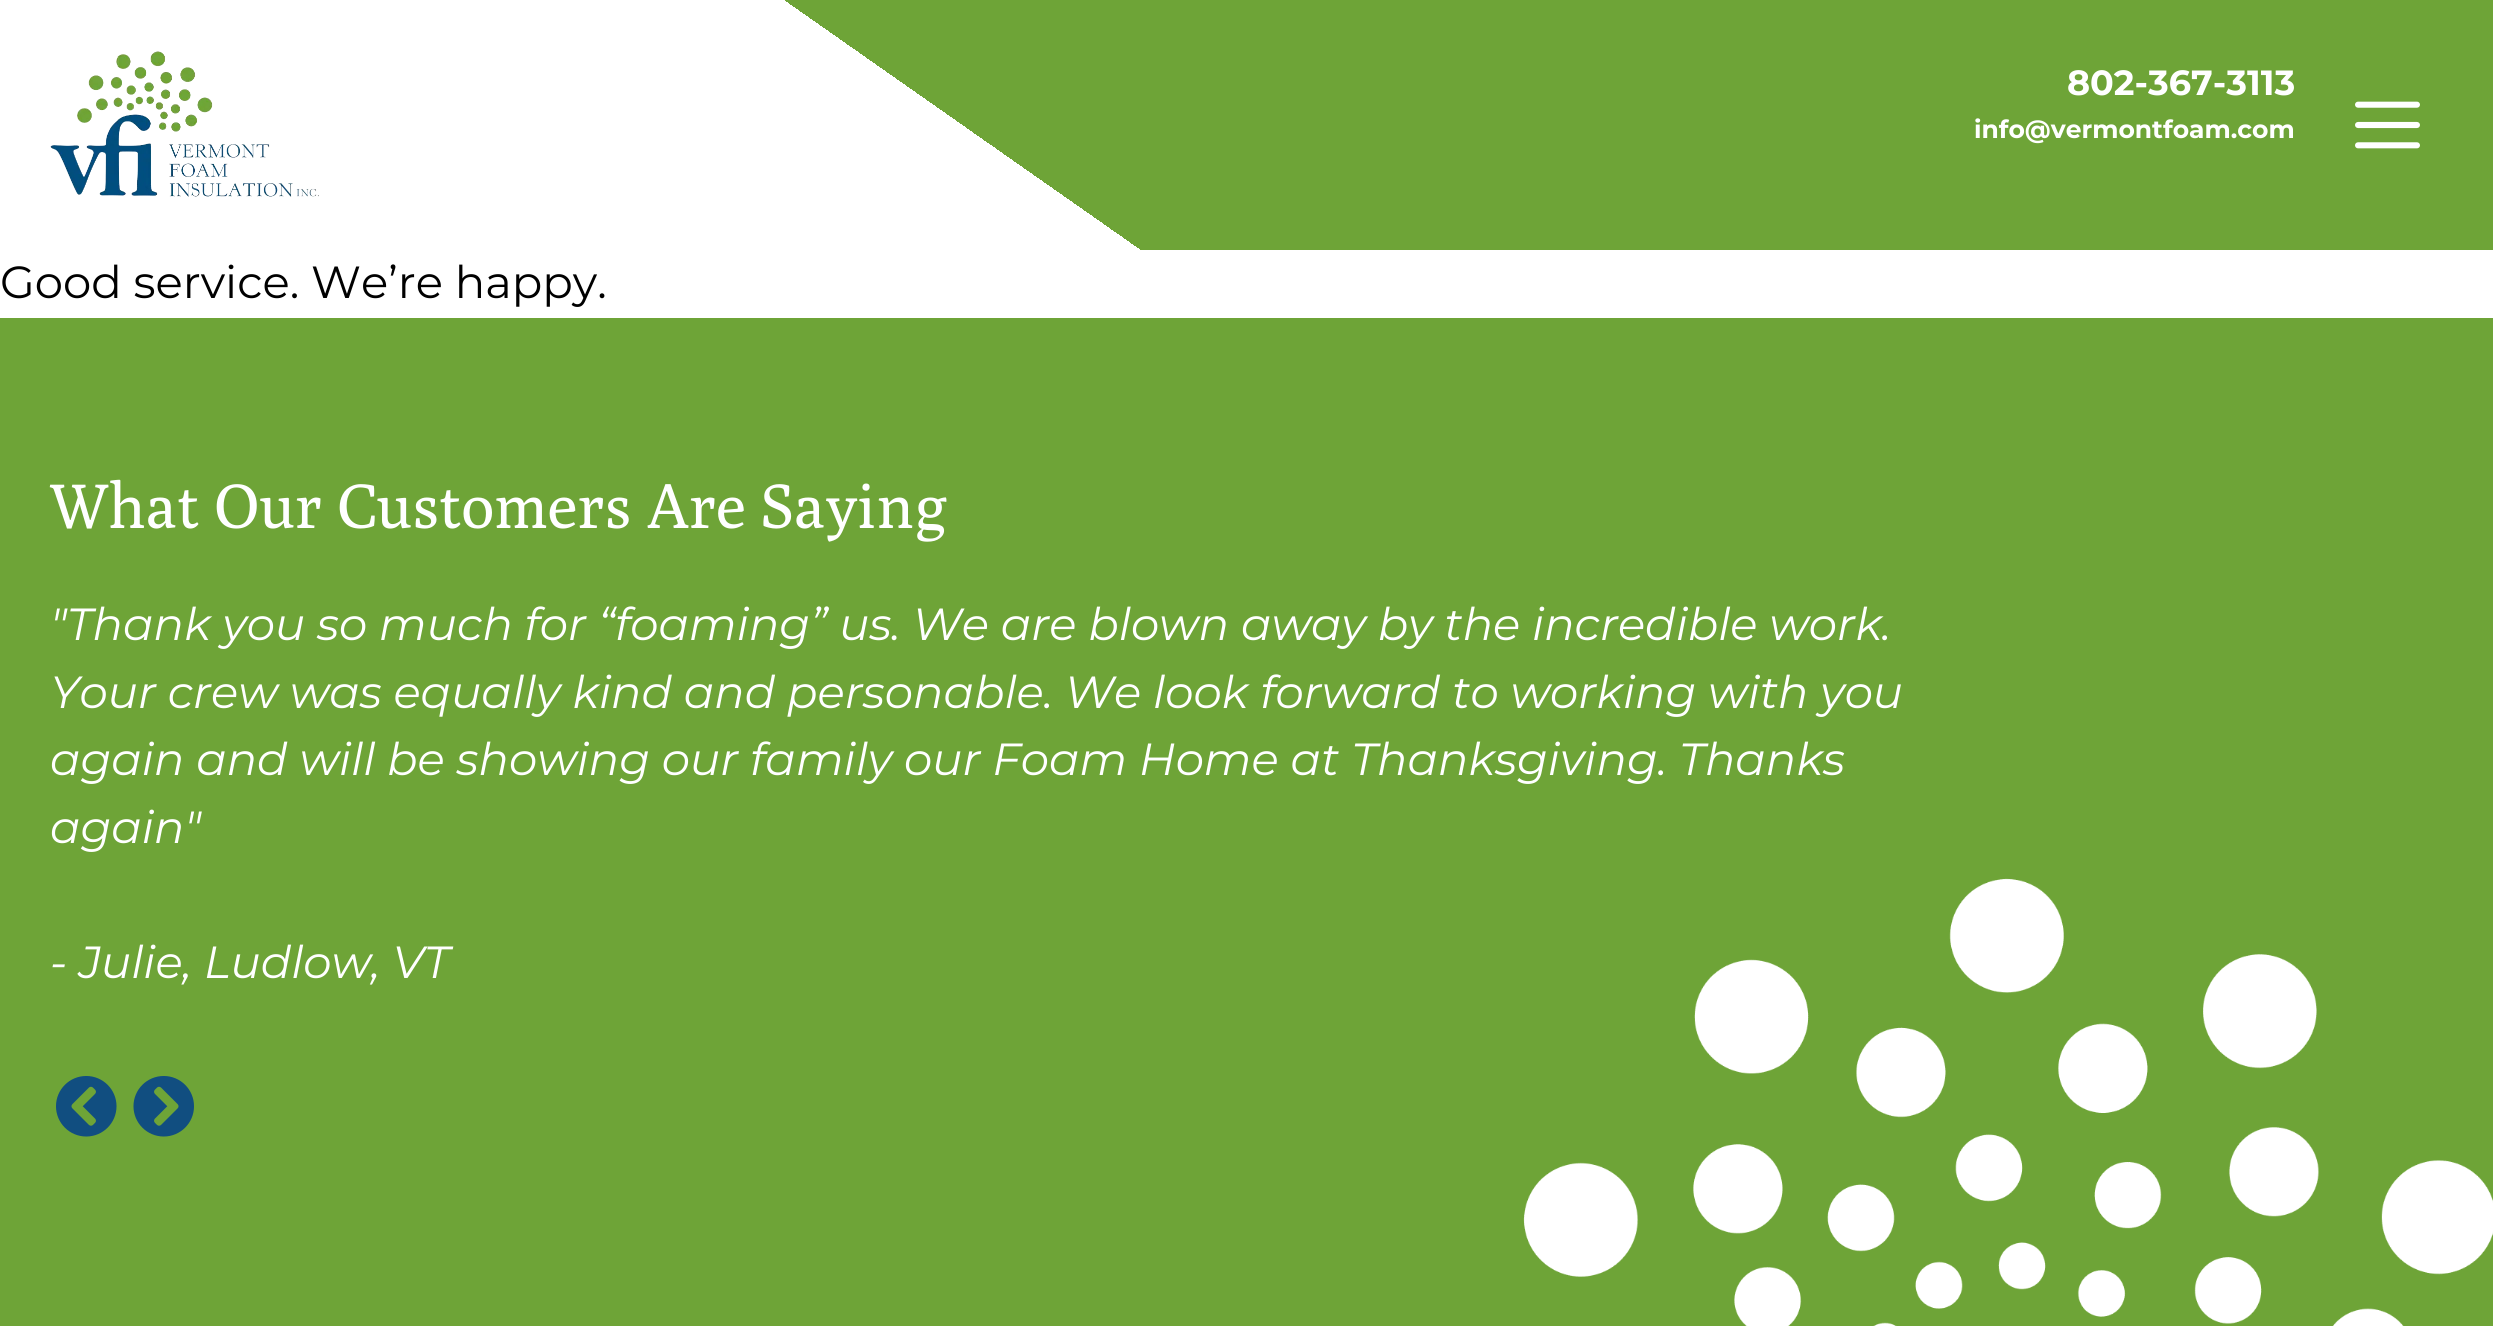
import math
import cairocffi as cairo

surface = cairo.ImageSurface(cairo.FORMAT_RGB24, 2493, 1326)
cr = cairo.Context(surface)
options = cairo.FontOptions()
options.set_hint_metrics(cairo.HINT_METRICS_OFF)
options.set_hint_style(cairo.HINT_STYLE_NONE)
cr.set_font_options(options)
cr.set_miter_limit(4)


def use_color(code):
    cr.set_source_rgb(*(v / 255 for v in bytes.fromhex(code[-6:])))


def picture(path, x, y, w, h):
    cr.save()
    cr.set_source_surface(cairo.ImageSurface.create_from_png(path), x, y)
    cr.rectangle(x, y, w, h)
    cr.fill()
    cr.restore()


use_color("#ffffff")
cr.paint()
gradient = cairo.LinearGradient(778, 795, 1717, -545)
gradient.add_color_stop_rgba(0.4, 1, 1, 1, 1)
gradient.add_color_stop_rgba(0.4, 0.431, 0.643, 0.216, 1)
cr.set_source(gradient)
cr.rectangle(785, 0, 1708, 250)
cr.fill()
picture("img1.png", 50, 51, 269, 146)
cr.select_font_face("Montserrat", cairo.FONT_SLANT_NORMAL, cairo.FONT_WEIGHT_BOLD)
cr.set_font_size(35)
use_color("#ffffff")
cr.move_to(2067, 95)
cr.show_text("802-367-3113")
cr.set_font_size(25)
cr.move_to(1974, 138)
cr.show_text("info@vermontfoam.com")
picture("img2.png", 2355, 101, 65, 48)
cr.select_font_face("Montserrat")
cr.set_font_size(45)
use_color("#000000")
cr.move_to(0, 298)
cr.show_text("Good service. We’re happy.")
use_color("#6ea437")
cr.rectangle(0, 318, 2493, 1008)
cr.fill()
cr.select_font_face("Poly")
cr.set_font_size(62.5)
use_color("#ffffff")
cr.move_to(50, 528)
cr.show_text("What Our Customers Are Saying")
cr.select_font_face("Montserrat", cairo.FONT_SLANT_ITALIC)
cr.set_font_size(45)
cr.move_to(50, 640)
cr.show_text("\"Thank you so much for “foaming” us. We are blown away by the incredible work.")
cr.move_to(50, 708)
cr.show_text("Your crew was equally kind and personable. We look forward to working with you")
cr.move_to(50, 775)
cr.show_text("again and will be showing our family our Foam Home at Thanksgiving. Thanks")
cr.move_to(50, 843)
cr.show_text("again\"")
cr.move_to(50, 978)
cr.show_text("- Julie, Ludlow, VT")
picture("img3.png", 56, 1076, 61, 61)
picture("img4.png", 133, 1076, 61, 61)
picture("img5.png", 1523, 878, 970, 448)
surface.write_to_png("result.png")
